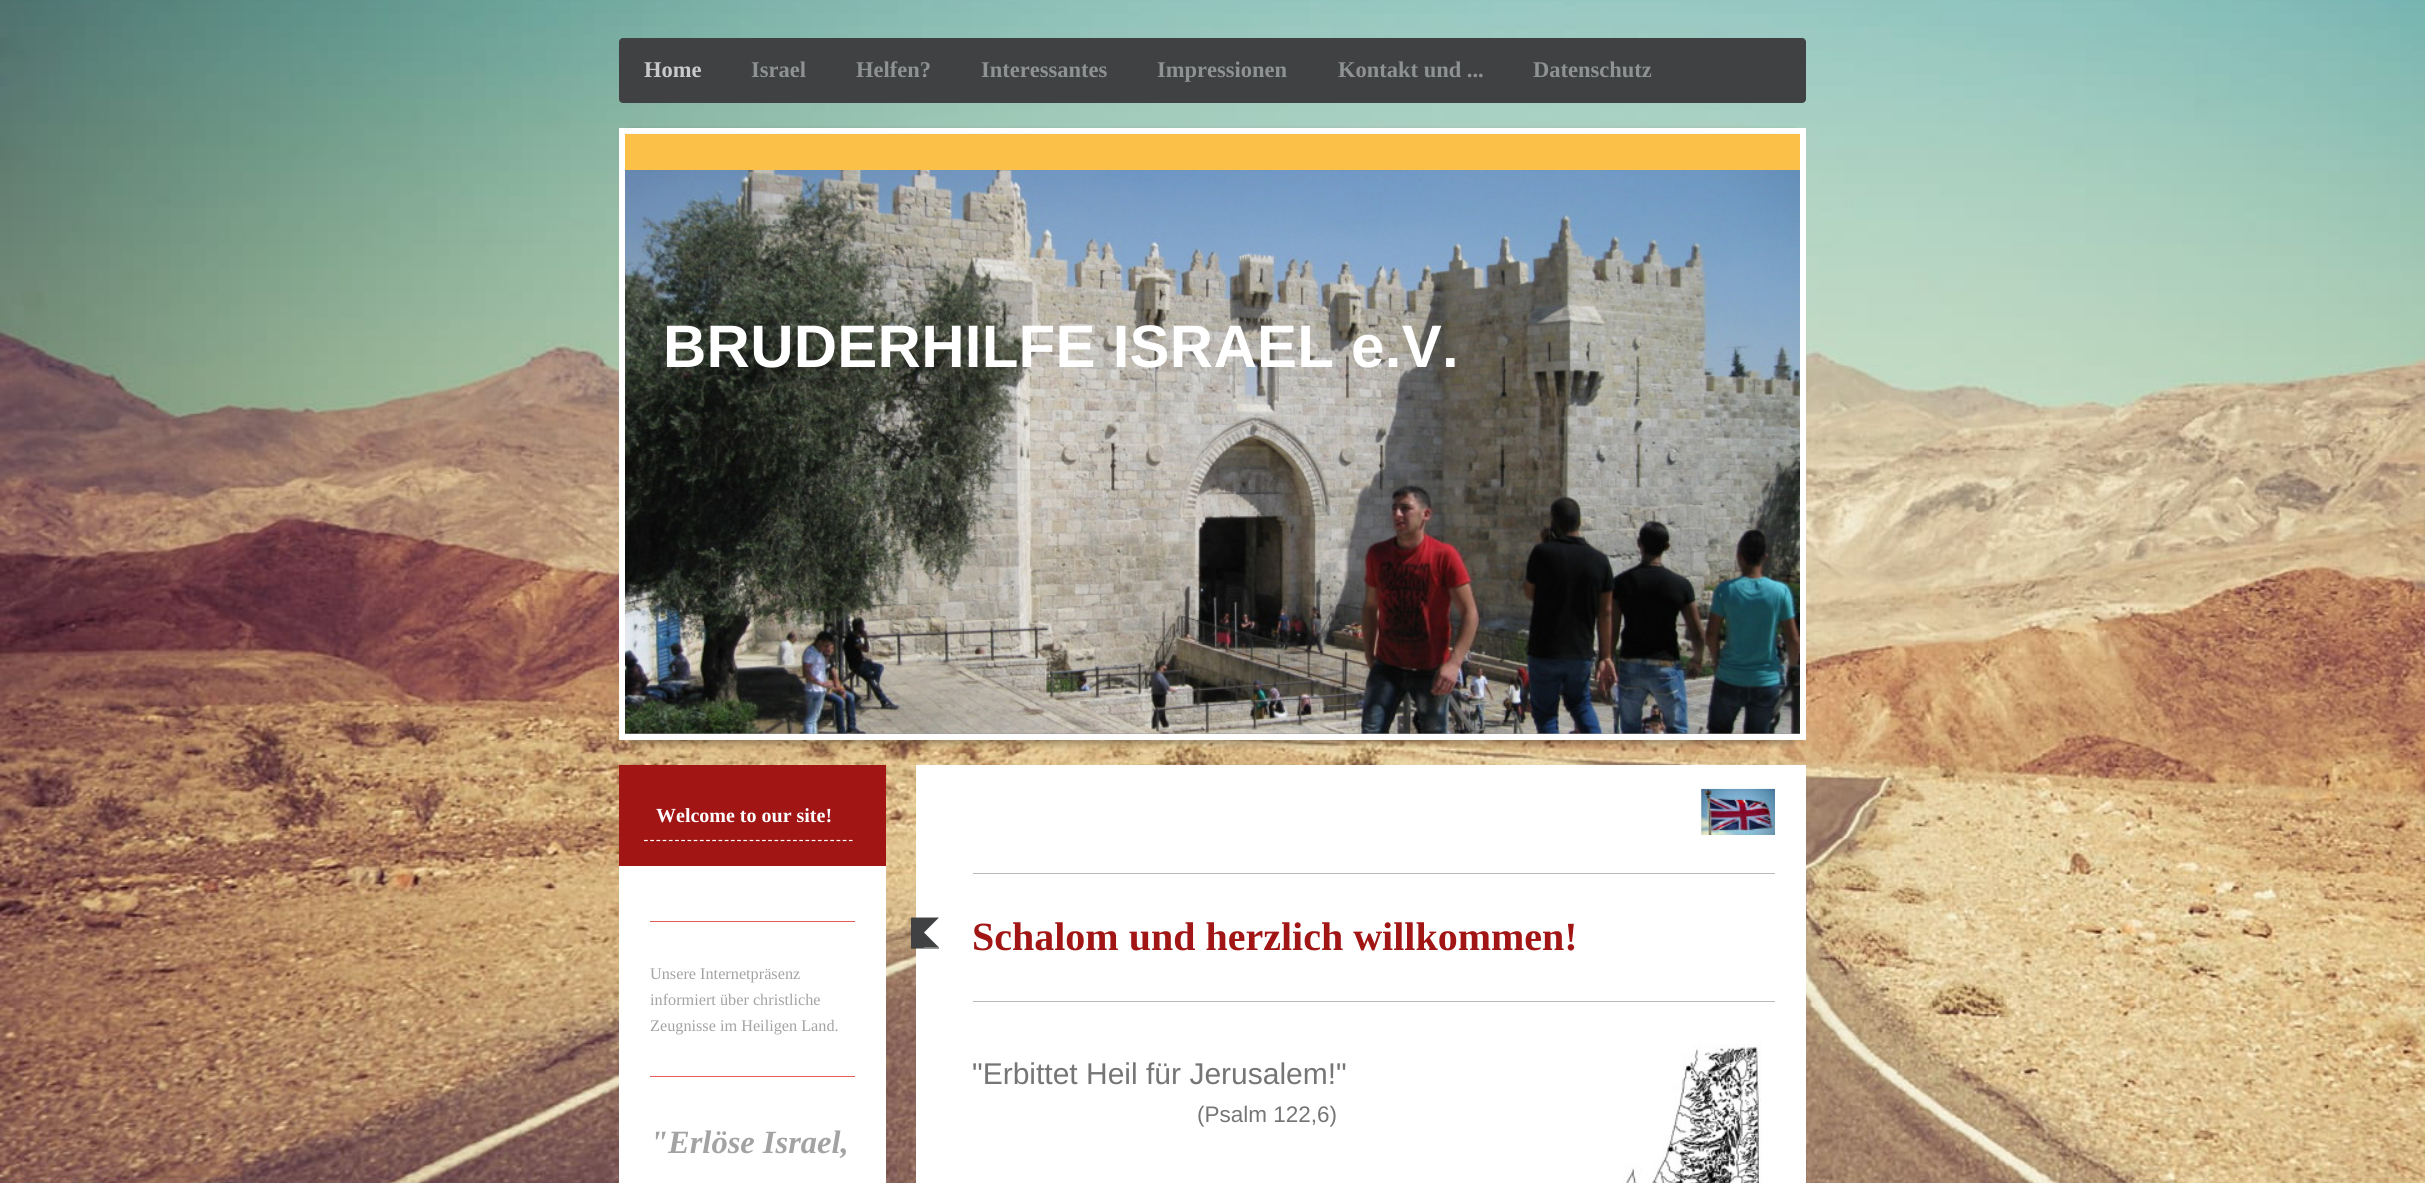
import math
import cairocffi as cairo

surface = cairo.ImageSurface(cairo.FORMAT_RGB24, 2425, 1183)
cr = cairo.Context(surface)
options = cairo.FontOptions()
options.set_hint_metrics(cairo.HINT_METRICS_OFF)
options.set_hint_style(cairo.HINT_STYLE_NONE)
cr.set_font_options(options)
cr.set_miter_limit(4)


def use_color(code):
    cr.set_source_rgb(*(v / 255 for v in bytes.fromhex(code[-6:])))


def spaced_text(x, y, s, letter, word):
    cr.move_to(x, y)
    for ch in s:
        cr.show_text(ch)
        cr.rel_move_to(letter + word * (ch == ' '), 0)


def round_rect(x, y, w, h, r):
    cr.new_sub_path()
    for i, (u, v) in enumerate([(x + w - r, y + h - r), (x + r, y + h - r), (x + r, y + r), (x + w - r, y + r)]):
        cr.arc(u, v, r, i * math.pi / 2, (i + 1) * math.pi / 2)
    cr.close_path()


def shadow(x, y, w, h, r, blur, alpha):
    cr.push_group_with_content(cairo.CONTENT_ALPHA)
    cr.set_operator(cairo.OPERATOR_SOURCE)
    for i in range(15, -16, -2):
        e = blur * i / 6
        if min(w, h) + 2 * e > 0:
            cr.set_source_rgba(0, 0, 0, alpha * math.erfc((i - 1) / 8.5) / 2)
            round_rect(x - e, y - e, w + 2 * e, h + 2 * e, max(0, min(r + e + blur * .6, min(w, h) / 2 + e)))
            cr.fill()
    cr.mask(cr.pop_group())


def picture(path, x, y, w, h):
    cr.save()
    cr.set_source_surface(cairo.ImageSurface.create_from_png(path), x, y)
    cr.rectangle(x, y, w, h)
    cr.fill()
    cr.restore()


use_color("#ffffff")
cr.paint()
picture("img1.png", 0, 0, 2425, 1183)
use_color("#3f4142")
round_rect(619, 38, 1187, 65, 4)
cr.fill()
cr.select_font_face("Liberation Serif", cairo.FONT_SLANT_NORMAL, cairo.FONT_WEIGHT_BOLD)
cr.set_font_size(22.5)
use_color("#c9cbcb")
cr.move_to(644, 77)
cr.show_text("Home")
use_color("#8f9293")
cr.move_to(751, 77)
cr.show_text("Israel")
cr.move_to(856, 77)
cr.show_text("Helfen?")
cr.move_to(981, 77)
cr.show_text("Interessantes")
cr.move_to(1157, 77)
cr.show_text("Impressionen")
cr.move_to(1338, 77)
cr.show_text("Kontakt und ...")
cr.move_to(1533, 77)
cr.show_text("Datenschutz")
use_color("#000000")
shadow(631, 131, 1163, 613, 0, 3, 0.3)
cr.rectangle(622, 131, 1181, 606)
use_color("#ffffff")
cr.set_line_width(6)
cr.stroke()
use_color("#999999")
cr.rectangle(625, 733, 1175, 1)
cr.fill()
picture("img2.png", 625, 133, 1175, 601)
use_color("#fbc048")
cr.rectangle(625, 134, 1175, 36)
cr.fill()
cr.select_font_face("Liberation Sans", cairo.FONT_SLANT_NORMAL, cairo.FONT_WEIGHT_BOLD)
cr.set_font_size(60)
use_color("#ffffff")
spaced_text(663, 367, "BRUDERHILFE ISRAEL e.V.", 0.25, 0)
use_color("#a11515")
cr.rectangle(619, 765, 267, 101)
cr.fill()
cr.new_path()
cr.move_to(644, 840.5)
cr.line_to(852.5, 840.5)
use_color("#ffffff")
cr.set_line_width(1.2)
cr.set_dash([3.75, 2.46])
cr.stroke()
cr.select_font_face("Liberation Serif", cairo.FONT_SLANT_NORMAL, cairo.FONT_WEIGHT_BOLD)
cr.set_font_size(20)
cr.move_to(656, 822)
cr.show_text("Welcome to our site!")
cr.rectangle(619, 866, 267, 317)
cr.fill()
use_color("#e35c5c")
cr.rectangle(650, 921, 205, 1)
cr.fill()
cr.select_font_face("Liberation Serif")
cr.set_font_size(16.25)
use_color("#a3a3a3")
cr.move_to(650, 979)
cr.show_text("Unsere Internetpräsenz")
cr.move_to(650, 1005)
cr.show_text("informiert über christliche")
cr.move_to(650, 1031)
cr.show_text("Zeugnisse im Heiligen Land.")
use_color("#e35c5c")
cr.rectangle(650, 1076, 205, 1)
cr.fill()
cr.select_font_face("Liberation Serif", cairo.FONT_SLANT_ITALIC, cairo.FONT_WEIGHT_BOLD)
cr.set_font_size(32.5)
use_color("#a3a3a3")
cr.move_to(650, 1153)
cr.show_text("\"Erlöse Israel,")
use_color("#ffffff")
cr.rectangle(916, 765, 890, 418)
cr.fill()
picture("img3.png", 1701, 788, 74, 47)
use_color("#bababa")
cr.rectangle(973, 873, 802, 1)
cr.fill()
cr.set_source_rgba(0, 0, 0, 0.4)
cr.new_path()
cr.move_to(911, 919)
cr.line_to(911, 949)
cr.line_to(939, 949)
cr.line_to(939, 919)
cr.line_to(939, 947.5)
cr.line_to(911, 947.5)
cr.close_path()
cr.fill()
use_color("#3f4142")
cr.new_path()
cr.move_to(911, 917.5)
cr.line_to(939, 917.5)
cr.line_to(924, 932.5)
cr.close_path()
cr.fill()
cr.new_path()
cr.move_to(939, 947.5)
cr.line_to(911, 947.5)
cr.line_to(924, 932.5)
cr.close_path()
cr.fill()
cr.rectangle(911, 918, 13, 30)
cr.fill()
cr.select_font_face("Liberation Serif", cairo.FONT_SLANT_NORMAL, cairo.FONT_WEIGHT_BOLD)
cr.set_font_size(40)
use_color("#a11515")
cr.move_to(972, 950)
cr.show_text("Schalom und herzlich willkommen!")
use_color("#bababa")
cr.rectangle(973, 1001, 802, 1)
cr.fill()
cr.select_font_face("Liberation Sans")
cr.set_font_size(30)
use_color("#757575")
cr.move_to(972, 1084)
cr.show_text("\"Erbittet Heil für Jerusalem!\"")
cr.set_font_size(22.5)
cr.move_to(1197, 1122)
cr.show_text("(Psalm 122,6)")
picture("img4.png", 1623, 1044, 139, 139)
surface.write_to_png("result.png")
